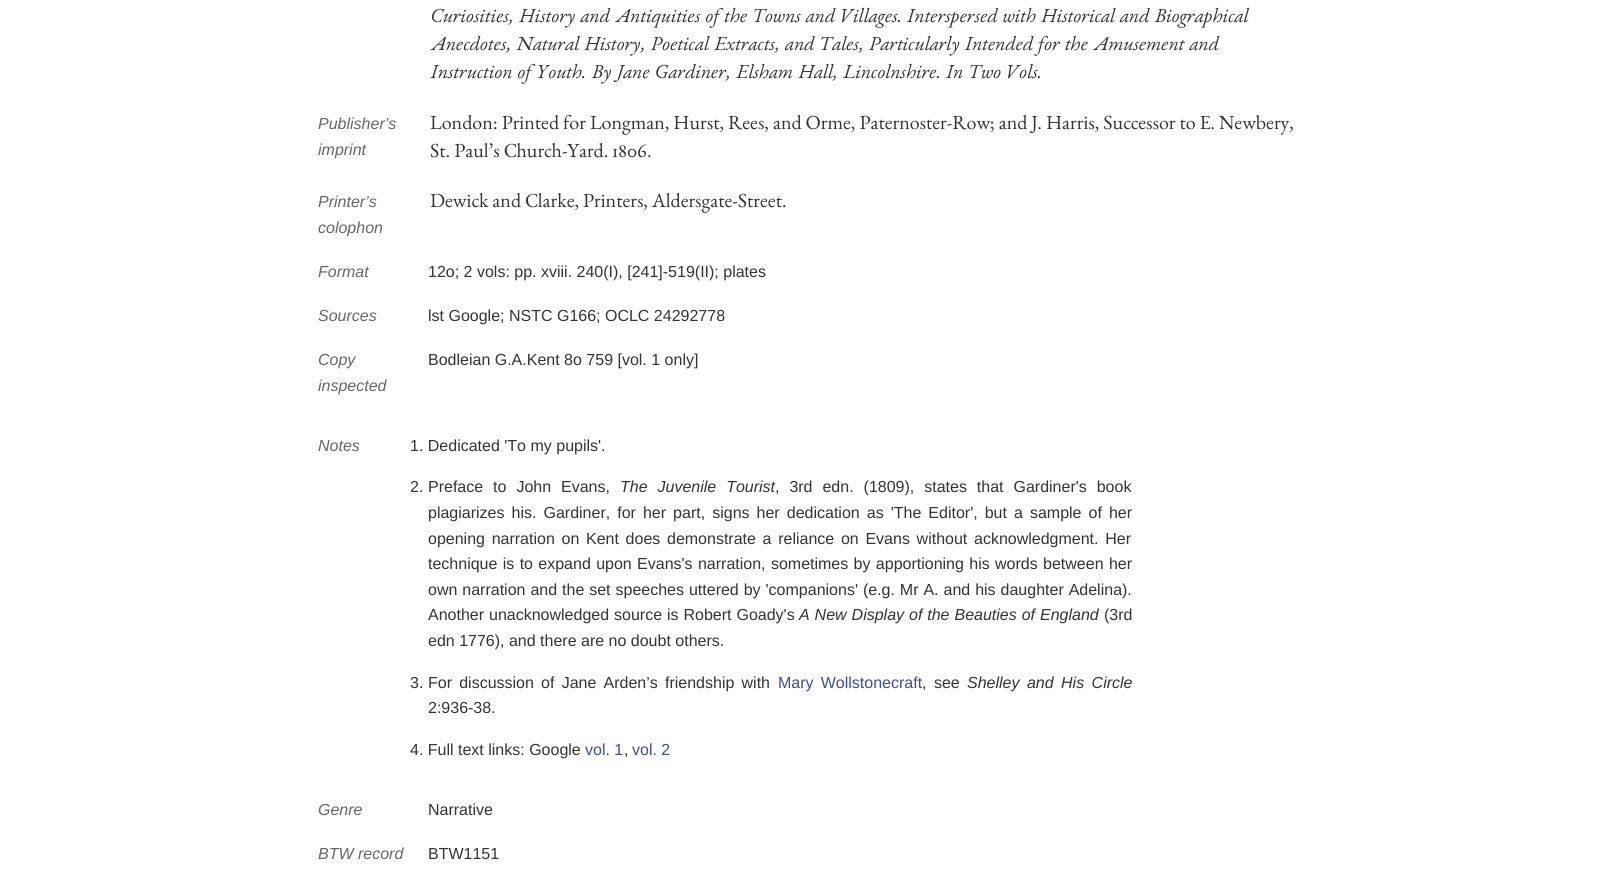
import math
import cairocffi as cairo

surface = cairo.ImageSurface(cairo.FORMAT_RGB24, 1615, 870)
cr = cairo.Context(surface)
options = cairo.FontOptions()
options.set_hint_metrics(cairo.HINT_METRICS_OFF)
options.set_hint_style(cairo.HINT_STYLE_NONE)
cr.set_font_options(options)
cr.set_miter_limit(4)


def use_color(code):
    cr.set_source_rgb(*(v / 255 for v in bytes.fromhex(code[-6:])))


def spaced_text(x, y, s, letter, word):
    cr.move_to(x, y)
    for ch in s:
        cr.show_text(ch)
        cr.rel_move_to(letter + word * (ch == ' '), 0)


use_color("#ffffff")
cr.paint()
cr.select_font_face("EB Garamond", cairo.FONT_SLANT_ITALIC)
cr.set_font_size(20)
use_color("#333333")
cr.move_to(430, 22)
cr.show_text("Curiosities, History and Antiquities of the Towns and Villages. Interspersed with Historical and Biographical")
cr.move_to(430, 50)
cr.show_text("Anecdotes, Natural History, Poetical Extracts, and Tales, Particularly Intended for the Amusement and")
cr.move_to(430, 78)
cr.show_text("Instruction of Youth. By Jane Gardiner, Elsham Hall, Lincolnshire. In Two Vols.")
cr.select_font_face("Liberation Sans", cairo.FONT_SLANT_ITALIC)
cr.set_font_size(16)
use_color("#666666")
cr.move_to(318, 129)
cr.show_text("Publisher’s")
cr.move_to(318, 155)
cr.show_text("imprint")
cr.select_font_face("EB Garamond")
cr.set_font_size(20)
use_color("#333333")
cr.move_to(430, 129)
cr.show_text("London: Printed for Longman, Hurst, Rees, and Orme, Paternoster-Row; and J. Harris, Successor to E. Newbery,")
cr.move_to(430, 157)
cr.show_text("St. Paul’s Church-Yard. 1806.")
cr.select_font_face("Liberation Sans", cairo.FONT_SLANT_ITALIC)
cr.set_font_size(16)
use_color("#666666")
cr.move_to(318, 207)
cr.show_text("Printer’s")
cr.move_to(318, 233)
cr.show_text("colophon")
cr.select_font_face("EB Garamond")
cr.set_font_size(20)
use_color("#333333")
cr.move_to(430, 207)
cr.show_text("Dewick and Clarke, Printers, Aldersgate-Street.")
cr.select_font_face("Liberation Sans", cairo.FONT_SLANT_ITALIC)
cr.set_font_size(16)
use_color("#666666")
cr.move_to(318, 277)
cr.show_text("Format")
cr.select_font_face("Liberation Sans")
use_color("#333333")
cr.move_to(428, 277)
cr.show_text("12o; 2 vols: pp. xviii. 240(I), [241]-519(II); plates")
cr.select_font_face("Liberation Sans", cairo.FONT_SLANT_ITALIC)
use_color("#666666")
cr.move_to(318, 321)
cr.show_text("Sources")
cr.select_font_face("Liberation Sans")
use_color("#333333")
cr.move_to(428, 321)
cr.show_text("lst Google; NSTC G166; OCLC 24292778")
cr.select_font_face("Liberation Sans", cairo.FONT_SLANT_ITALIC)
use_color("#666666")
cr.move_to(318, 365)
cr.show_text("Copy")
cr.move_to(318, 391)
cr.show_text("inspected")
cr.select_font_face("Liberation Sans")
use_color("#333333")
cr.move_to(428, 365)
cr.show_text("Bodleian G.A.Kent 8o 759 [vol. 1 only]")
cr.select_font_face("Liberation Sans", cairo.FONT_SLANT_ITALIC)
use_color("#666666")
cr.move_to(318, 451)
cr.show_text("Notes")
cr.select_font_face("Liberation Sans")
use_color("#333333")
cr.move_to(410, 451)
cr.show_text("1. Dedicated 'To my pupils'.")
cr.move_to(410, 492)
cr.show_text("2.")
spaced_text(428, 492, "Preface to John Evans,", 0, 5.5)
cr.select_font_face("Liberation Sans", cairo.FONT_SLANT_ITALIC)
spaced_text(620, 492, "The Juvenile Tourist", 0, 5.5)
cr.select_font_face("Liberation Sans")
spaced_text(775, 492, ", 3rd edn. (1809), states that Gardiner's book", 0, 5.5)
spaced_text(428, 518, "plagiarizes his. Gardiner, for her part, signs her dedication as 'The Editor', but a sample of her", 0, 2.6)
spaced_text(428, 544, "opening narration on Kent does demonstrate a reliance on Evans without acknowledgment. Her", 0, 2.25)
spaced_text(428, 569, "technique is to expand upon Evans's narration, sometimes by apportioning his words between her", 0, 0.9)
spaced_text(428, 595, "own narration and the set speeches uttered by 'companions' (e.g. Mr A. and his daughter Adelina).", 0, 0.5)
spaced_text(428, 620, "Another unacknowledged source is Robert Goady's", 0, 0.5)
cr.select_font_face("Liberation Sans", cairo.FONT_SLANT_ITALIC)
spaced_text(799, 620, "A New Display of the Beauties of England", 0, 0.5)
cr.select_font_face("Liberation Sans")
cr.move_to(1104, 620)
cr.show_text("(3rd")
cr.move_to(428, 646)
cr.show_text("edn 1776), and there are no doubt others.")
cr.move_to(410, 688)
cr.show_text("3.")
spaced_text(428, 688, "For discussion of Jane Arden’s friendship with", 0, 2.75)
use_color("#3d4d99")
spaced_text(778, 688, "Mary Wollstonecraft", 0, 2.75)
use_color("#333333")
spaced_text(922, 688, ", see", 0, 3)
cr.select_font_face("Liberation Sans", cairo.FONT_SLANT_ITALIC)
spaced_text(967, 688, "Shelley and His Circle", 0, 3)
cr.select_font_face("Liberation Sans")
cr.move_to(428, 713)
cr.show_text("2:936-38.")
cr.move_to(410, 755)
cr.show_text("4. Full text links: Google")
use_color("#3d4d99")
cr.move_to(585, 755)
cr.show_text("vol. 1")
use_color("#333333")
cr.move_to(624, 755)
cr.show_text(",")
use_color("#3d4d99")
cr.move_to(632, 755)
cr.show_text("vol. 2")
cr.select_font_face("Liberation Sans", cairo.FONT_SLANT_ITALIC)
use_color("#666666")
cr.move_to(318, 815)
cr.show_text("Genre")
cr.select_font_face("Liberation Sans")
use_color("#333333")
cr.move_to(428, 815)
cr.show_text("Narrative")
cr.select_font_face("Liberation Sans", cairo.FONT_SLANT_ITALIC)
use_color("#666666")
cr.move_to(318, 859)
cr.show_text("BTW record")
cr.select_font_face("Liberation Sans")
use_color("#333333")
cr.move_to(428, 859)
cr.show_text("BTW1151")
surface.write_to_png("result.png")
